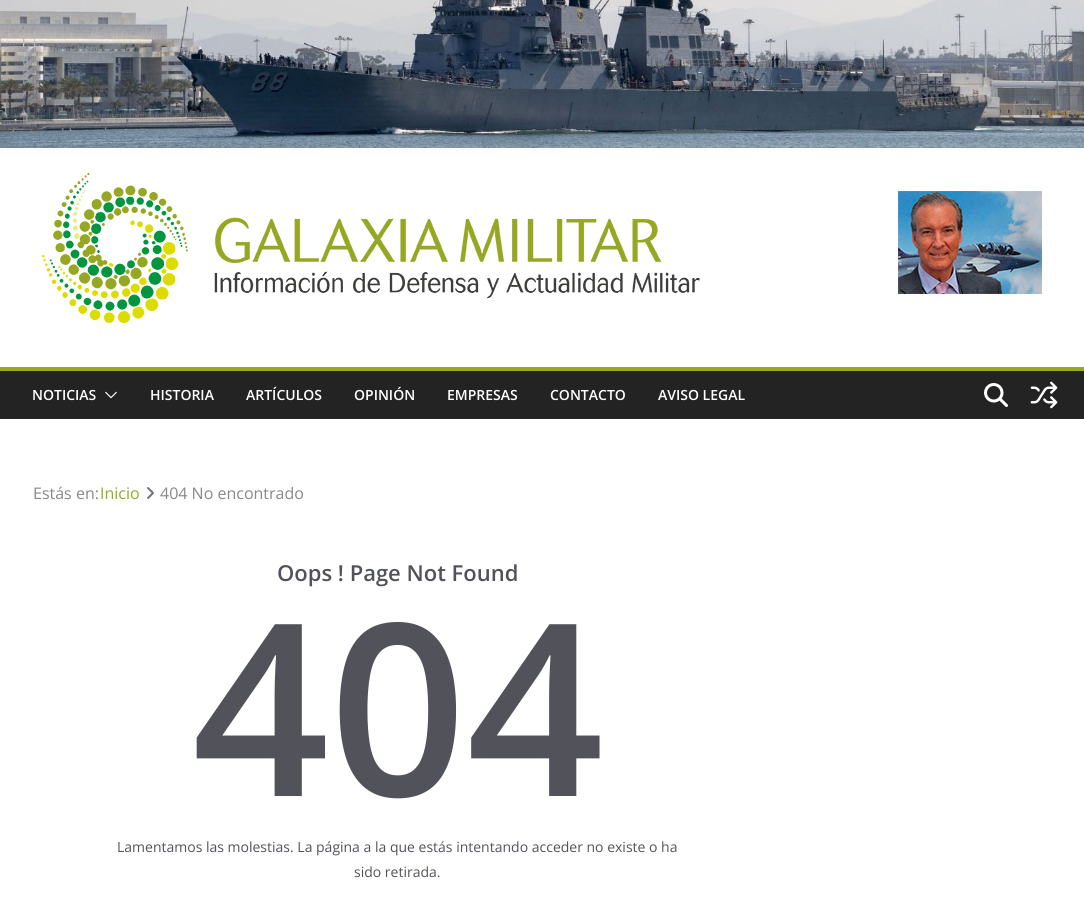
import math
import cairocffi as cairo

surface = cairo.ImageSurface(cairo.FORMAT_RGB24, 1084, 898)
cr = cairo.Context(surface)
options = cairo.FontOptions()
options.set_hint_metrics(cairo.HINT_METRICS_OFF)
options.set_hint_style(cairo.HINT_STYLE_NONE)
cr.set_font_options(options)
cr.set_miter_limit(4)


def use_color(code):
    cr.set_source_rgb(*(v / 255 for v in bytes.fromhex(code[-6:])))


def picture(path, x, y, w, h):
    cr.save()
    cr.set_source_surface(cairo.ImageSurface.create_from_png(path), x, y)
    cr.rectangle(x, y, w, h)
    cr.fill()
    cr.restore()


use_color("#ffffff")
cr.paint()
picture("img1.png", 0, 0, 1084, 148)
picture("img2.png", 42, 173, 1000, 150)
use_color("#232323")
cr.rectangle(0, 371, 1084, 48)
cr.fill()
use_color("#96a824")
cr.rectangle(0, 367, 1084, 4)
cr.fill()
cr.select_font_face("Open Sans SemiBold")
cr.set_font_size(14)
use_color("#ffffff")
cr.move_to(32, 400)
cr.show_text("NOTICIAS")
picture("img3.png", 105, 391, 12, 8)
cr.move_to(150, 400)
cr.show_text("HISTORIA")
cr.move_to(246, 400)
cr.show_text("ARTÍCULOS")
cr.move_to(354, 400)
cr.show_text("OPINIÓN")
cr.move_to(447, 400)
cr.show_text("EMPRESAS")
cr.move_to(550, 400)
cr.show_text("CONTACTO")
cr.move_to(658, 400)
cr.show_text("AVISO LEGAL")
picture("img4.png", 984, 383, 24, 24)
picture("img5.png", 1030, 381, 28, 28)
cr.select_font_face("Open Sans")
cr.set_font_size(16)
use_color("#888888")
cr.move_to(33, 499)
cr.show_text("Estás en:")
use_color("#96a824")
cr.move_to(100, 499)
cr.show_text("Inicio")
picture("img6.png", 147, 487, 7, 12)
use_color("#888888")
cr.move_to(160, 499)
cr.show_text("404 No encontrado")
cr.select_font_face("Open Sans SemiBold")
cr.set_font_size(22)
use_color("#52525b")
cr.move_to(277, 581)
cr.show_text("Oops ! Page Not Found")
cr.set_font_size(240)
cr.move_to(192, 796)
cr.show_text("404")
cr.select_font_face("Open Sans")
cr.set_font_size(14)
cr.move_to(117, 852)
cr.show_text("Lamentamos las molestias. La página a la que estás intentando acceder no existe o ha")
cr.move_to(354, 877)
cr.show_text("sido retirada.")
surface.write_to_png("result.png")
